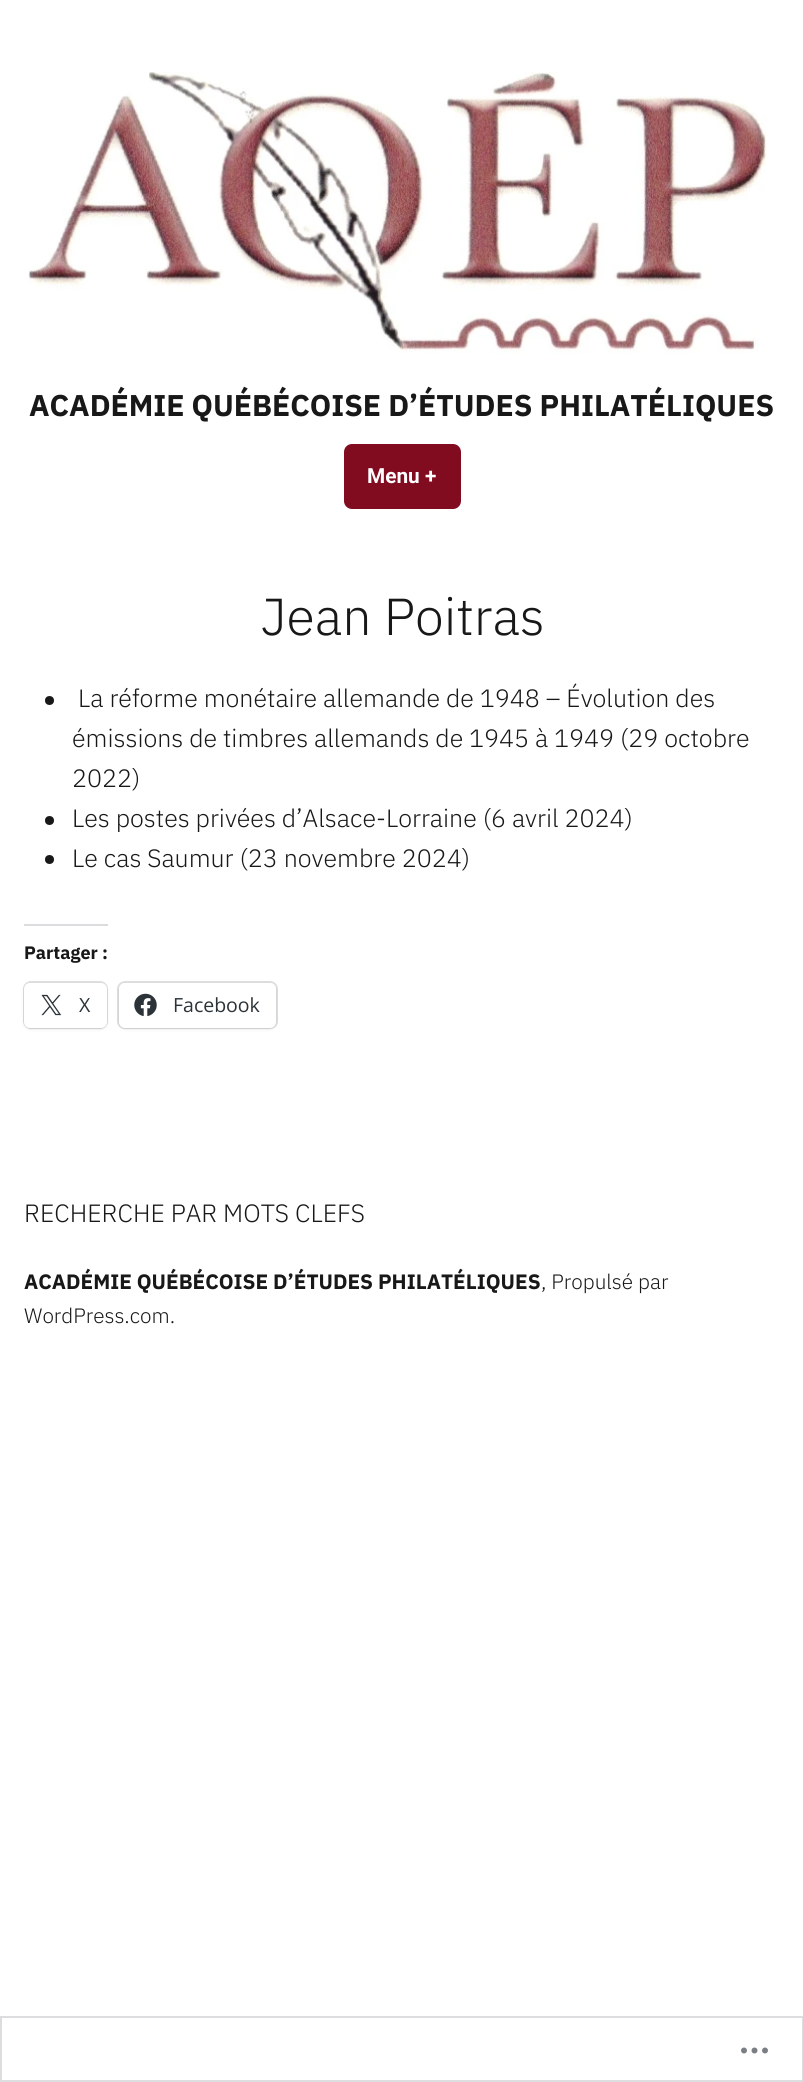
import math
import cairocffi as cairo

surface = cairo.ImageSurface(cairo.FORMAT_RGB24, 803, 2082)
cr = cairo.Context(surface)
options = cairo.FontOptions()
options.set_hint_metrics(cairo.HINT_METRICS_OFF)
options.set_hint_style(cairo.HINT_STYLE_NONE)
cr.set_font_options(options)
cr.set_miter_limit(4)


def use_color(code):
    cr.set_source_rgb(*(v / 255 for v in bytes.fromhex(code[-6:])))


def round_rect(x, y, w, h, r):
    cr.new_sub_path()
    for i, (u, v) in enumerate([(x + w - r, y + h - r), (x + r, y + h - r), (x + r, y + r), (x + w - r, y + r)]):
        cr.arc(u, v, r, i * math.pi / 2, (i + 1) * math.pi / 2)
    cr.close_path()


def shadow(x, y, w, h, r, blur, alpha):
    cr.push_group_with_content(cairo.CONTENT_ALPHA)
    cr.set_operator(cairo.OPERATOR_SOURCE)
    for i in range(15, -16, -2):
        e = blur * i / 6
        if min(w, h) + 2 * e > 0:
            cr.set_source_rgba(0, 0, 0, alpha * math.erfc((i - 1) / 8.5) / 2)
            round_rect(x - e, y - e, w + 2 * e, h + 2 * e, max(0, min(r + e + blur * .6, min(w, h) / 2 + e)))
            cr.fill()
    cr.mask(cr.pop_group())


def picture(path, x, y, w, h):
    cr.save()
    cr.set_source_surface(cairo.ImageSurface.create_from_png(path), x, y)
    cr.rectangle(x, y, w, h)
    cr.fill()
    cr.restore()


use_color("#ffffff")
cr.paint()
picture("img1.png", 28, 72, 739, 282)
cr.select_font_face("IBM Plex Sans", cairo.FONT_SLANT_NORMAL, cairo.FONT_WEIGHT_BOLD)
cr.set_font_size(30)
use_color("#181818")
cr.move_to(29, 416)
cr.show_text("ACADÉMIE QUÉBÉCOISE D’ÉTUDES PHILATÉLIQUES")
use_color("#810c20")
round_rect(344, 444, 117, 65, 8)
cr.fill()
cr.select_font_face("Roboto", cairo.FONT_SLANT_NORMAL, cairo.FONT_WEIGHT_BOLD)
cr.set_font_size(20.8)
use_color("#ffffff")
cr.move_to(367, 483)
cr.show_text("Menu +")
cr.select_font_face("IBM Plex Sans Light")
cr.set_font_size(52)
use_color("#181818")
cr.move_to(261, 635)
cr.show_text("Jean Poitras")
cr.new_path()
cr.arc(49.5, 700.5, 4.5, 0, 2 * math.pi)
cr.fill()
cr.set_font_size(25)
cr.move_to(78, 707)
cr.show_text("La réforme monétaire allemande de 1948 – Évolution des")
cr.move_to(72, 747)
cr.show_text("émissions de timbres allemands de 1945 à 1949 (29 octobre")
cr.move_to(72, 787)
cr.show_text("2022)")
cr.new_path()
cr.arc(49.5, 820.5, 4.5, 0, 2 * math.pi)
cr.fill()
cr.move_to(72, 827)
cr.show_text("Les postes privées d’Alsace-Lorraine (6 avril 2024)")
cr.new_path()
cr.arc(49.5, 859.5, 4.5, 0, 2 * math.pi)
cr.fill()
cr.move_to(72, 867)
cr.show_text("Le cas Saumur (23 novembre 2024)")
use_color("#dcdcde")
cr.rectangle(24, 924, 84, 2)
cr.fill()
cr.select_font_face("IBM Plex Sans", cairo.FONT_SLANT_NORMAL, cairo.FONT_WEIGHT_BOLD)
cr.set_font_size(18)
use_color("#181818")
cr.move_to(24, 959)
cr.show_text("Partager :")
round_rect(24, 982, 83, 46, 7)
use_color("#e0e0e0")
cr.stroke()
use_color("#000000")
shadow(24, 984, 83, 45, 6, 1.5, 0.12)
use_color("#ffffff")
round_rect(24, 983, 83, 45, 6)
cr.fill()
picture("img2.png", 41, 994, 21, 22)
cr.select_font_face("Open Sans")
cr.set_font_size(19.5)
use_color("#2c3338")
cr.move_to(79, 1012)
cr.show_text("X")
round_rect(118, 982, 159, 46, 7)
use_color("#e0e0e0")
cr.stroke()
use_color("#000000")
shadow(119, 984, 157, 45, 6, 1.5, 0.12)
use_color("#ffffff")
round_rect(119, 983, 157, 45, 6)
cr.fill()
picture("img3.png", 134, 993, 23, 24)
use_color("#2c3338")
cr.move_to(173, 1012)
cr.show_text("Facebook")
cr.select_font_face("IBM Plex Sans Light")
cr.set_font_size(25)
use_color("#181818")
cr.move_to(24, 1222)
cr.show_text("RECHERCHE PAR MOTS CLEFS")
cr.select_font_face("IBM Plex Sans", cairo.FONT_SLANT_NORMAL, cairo.FONT_WEIGHT_BOLD)
cr.set_font_size(20.8)
cr.move_to(24, 1289)
cr.show_text("ACADÉMIE QUÉBÉCOISE D’ÉTUDES PHILATÉLIQUES")
cr.select_font_face("IBM Plex Sans Light")
cr.move_to(541, 1289)
cr.show_text(", Propulsé par")
cr.move_to(24, 1323)
cr.show_text("WordPress.com.")
cr.rectangle(1, 2017, 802, 64)
use_color("#dddddf")
cr.stroke()
picture("img4.png", 741, 2047, 27, 7)
surface.write_to_png("result.png")
